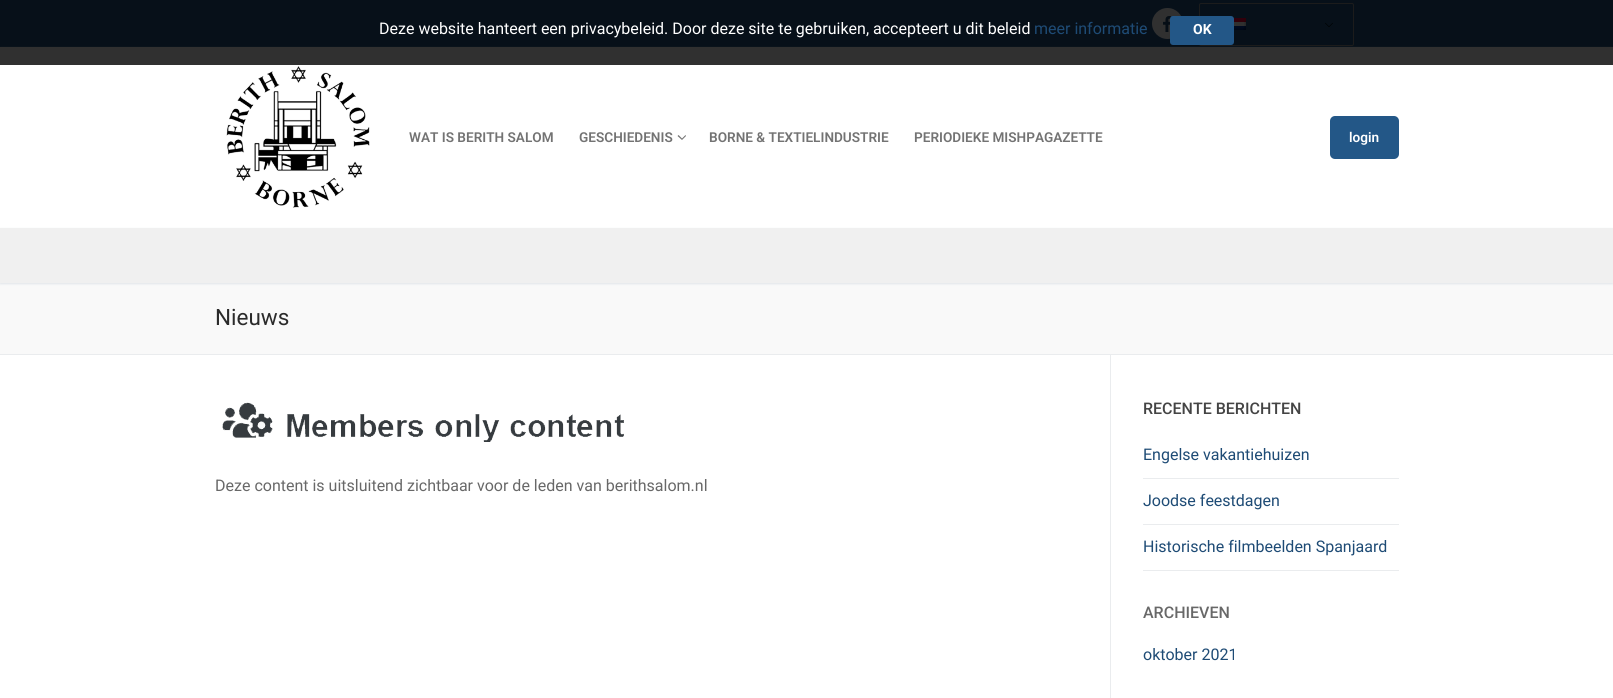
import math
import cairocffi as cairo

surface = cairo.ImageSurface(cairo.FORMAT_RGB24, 1613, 698)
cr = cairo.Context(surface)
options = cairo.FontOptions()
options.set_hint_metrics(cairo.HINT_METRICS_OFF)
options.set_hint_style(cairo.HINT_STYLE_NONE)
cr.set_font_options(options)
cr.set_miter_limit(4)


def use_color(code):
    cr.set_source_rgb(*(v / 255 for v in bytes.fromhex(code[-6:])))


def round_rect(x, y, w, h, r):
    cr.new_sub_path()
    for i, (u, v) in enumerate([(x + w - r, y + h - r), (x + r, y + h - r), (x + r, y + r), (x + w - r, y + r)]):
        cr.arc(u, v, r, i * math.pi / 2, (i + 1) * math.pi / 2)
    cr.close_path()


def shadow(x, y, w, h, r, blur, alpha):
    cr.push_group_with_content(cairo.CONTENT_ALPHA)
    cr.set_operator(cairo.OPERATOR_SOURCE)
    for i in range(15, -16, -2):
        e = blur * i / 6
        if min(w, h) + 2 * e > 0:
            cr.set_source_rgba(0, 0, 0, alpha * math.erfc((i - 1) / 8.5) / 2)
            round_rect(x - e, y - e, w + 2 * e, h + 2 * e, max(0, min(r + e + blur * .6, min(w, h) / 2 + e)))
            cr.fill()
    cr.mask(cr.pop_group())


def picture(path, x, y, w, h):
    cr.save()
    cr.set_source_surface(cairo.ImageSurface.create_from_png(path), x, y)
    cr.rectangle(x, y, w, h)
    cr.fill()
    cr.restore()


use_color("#ffffff")
cr.paint()
use_color("#235787")
cr.rectangle(0, 0, 1613, 47)
cr.fill()
use_color("#ffffff")
cr.arc(1167.5, 23.5, 15.5, 0, 2 * math.pi)
cr.fill()
picture("img1.png", 1163, 16, 9, 16)
picture("img2.png", 1325, 22, 8, 5)
cr.save()
cr.rectangle(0, 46, 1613, 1)
cr.clip()
use_color("#e1e5ea")
shadow(0, 48, 1613, 181, 0, 1, 1)
cr.restore()
round_rect(1199.5, 3.5, 154, 42, 1.5)
use_color("#949494")
cr.set_line_width(1)
cr.stroke()
picture("img3.png", 1233, 18, 13, 12)
cr.set_source_rgba(0, 0, 0, 0.81)
cr.rectangle(0, 0, 1613, 65)
cr.fill()
cr.select_font_face("Roboto")
cr.set_font_size(16)
use_color("#ffffff")
cr.move_to(379, 34)
cr.show_text("Deze website hanteert een privacybeleid. Door deze site te gebruiken, accepteert u dit beleid")
use_color("#1e4b75")
cr.move_to(1034, 34)
cr.show_text("meer informatie")
use_color("#235787")
round_rect(1170, 16, 64, 29, 3)
cr.fill()
cr.select_font_face("Roboto", cairo.FONT_SLANT_NORMAL, cairo.FONT_WEIGHT_BOLD)
cr.set_font_size(14)
use_color("#ffffff")
cr.move_to(1193, 34)
cr.show_text("OK")
picture("img4.png", 226, 66, 144, 142)
cr.select_font_face("Roboto SemiBold")
cr.set_font_size(13.6)
use_color("#737373")
cr.move_to(409, 142)
cr.show_text("WAT IS BERITH SALOM")
cr.move_to(579, 142)
cr.show_text("GESCHIEDENIS")
cr.new_path()
cr.move_to(682, 140)
cr.line_to(677.5, 136)
cr.line_to(678.5, 135)
cr.line_to(682, 138.5)
cr.close_path()
cr.move_to(686, 136)
cr.line_to(682, 140)
cr.line_to(682, 138.5)
cr.line_to(685.5, 135)
cr.close_path()
cr.fill()
cr.move_to(709, 142)
cr.show_text("BORNE & TEXTIELINDUSTRIE")
cr.move_to(914, 142)
cr.show_text("PERIODIEKE MISHPAGAZETTE")
use_color("#235787")
round_rect(1330, 116, 69, 43, 5)
cr.fill()
use_color("#ffffff")
cr.move_to(1349, 142)
cr.show_text("login")
use_color("#f9f9f9")
cr.rectangle(0, 283, 1613, 71)
cr.fill()
use_color("#e1e5ea")
shadow(0, 229, 1613, 55, 0, 1, 1)
use_color("#f0f0f0")
cr.rectangle(0, 228, 1613, 55)
cr.fill()
use_color("#eaecee")
cr.rectangle(0, 354, 1613, 1)
cr.fill()
cr.select_font_face("Roboto")
cr.set_font_size(22.5)
use_color("#2b2b2b")
cr.move_to(215, 325)
cr.show_text("Nieuws")
use_color("#eaecee")
cr.rectangle(1110, 355, 1, 343)
cr.fill()
picture("img5.png", 222, 402, 402, 40)
cr.set_font_size(16)
use_color("#686868")
cr.move_to(215, 491)
cr.show_text("Deze content is uitsluitend zichtbaar voor de leden van berithsalom.nl")
cr.select_font_face("Roboto Medium")
use_color("#444444")
cr.move_to(1143, 414)
cr.show_text("RECENTE BERICHTEN")
use_color("#eaecee")
cr.rectangle(1143, 478, 256, 1)
cr.fill()
cr.select_font_face("Roboto")
use_color("#1e4b75")
cr.move_to(1143, 460)
cr.show_text("Engelse vakantiehuizen")
use_color("#eaecee")
cr.rectangle(1143, 524, 256, 1)
cr.fill()
use_color("#1e4b75")
cr.move_to(1143, 506)
cr.show_text("Joodse feestdagen")
use_color("#eaecee")
cr.rectangle(1143, 570, 256, 1)
cr.fill()
use_color("#1e4b75")
cr.move_to(1143, 552)
cr.show_text("Historische filmbeelden Spanjaard")
cr.select_font_face("Roboto Medium")
use_color("#686868")
cr.move_to(1143, 618)
cr.show_text("ARCHIEVEN")
cr.select_font_face("Roboto")
use_color("#1e4b75")
cr.move_to(1143, 660)
cr.show_text("oktober 2021")
surface.write_to_png("result.png")
